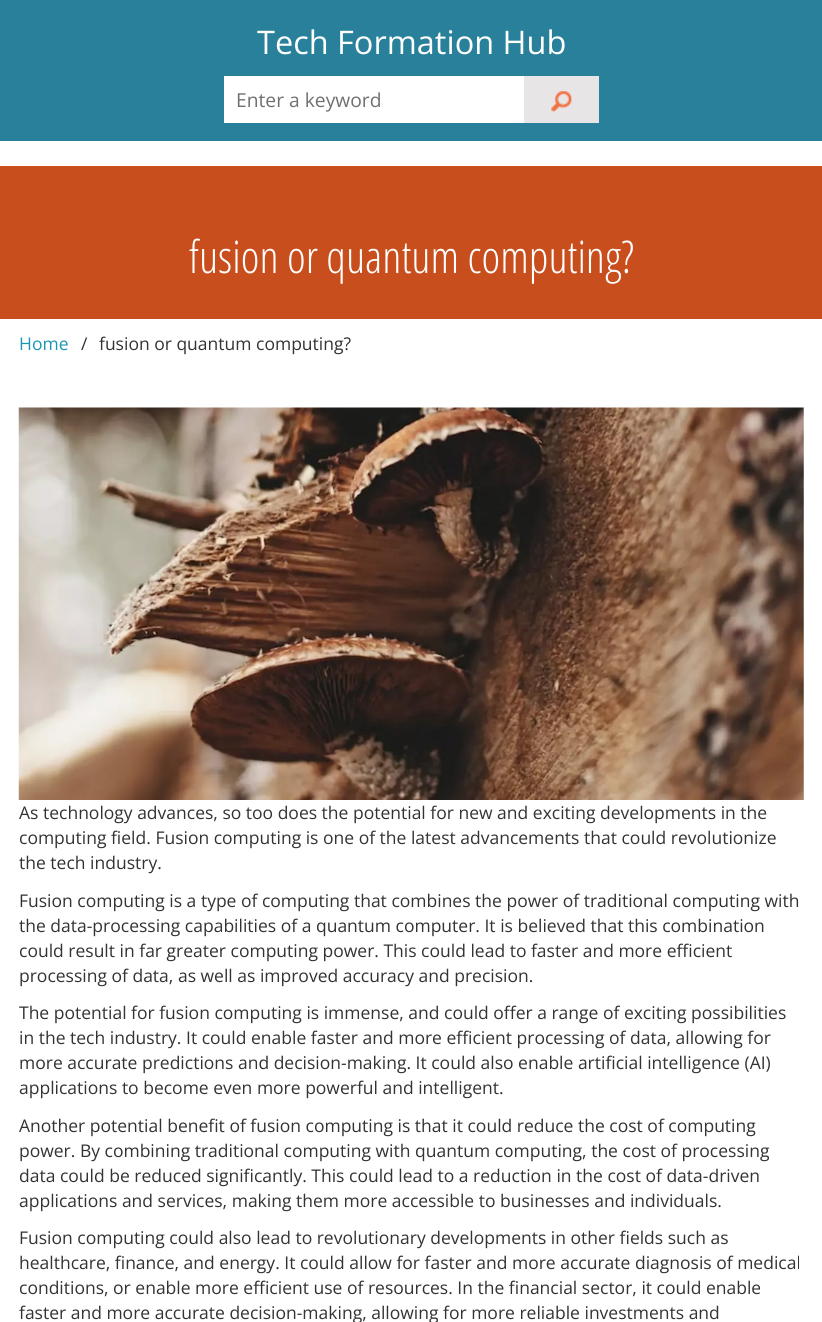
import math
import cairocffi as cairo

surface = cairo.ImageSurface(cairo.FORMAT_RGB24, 822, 1322)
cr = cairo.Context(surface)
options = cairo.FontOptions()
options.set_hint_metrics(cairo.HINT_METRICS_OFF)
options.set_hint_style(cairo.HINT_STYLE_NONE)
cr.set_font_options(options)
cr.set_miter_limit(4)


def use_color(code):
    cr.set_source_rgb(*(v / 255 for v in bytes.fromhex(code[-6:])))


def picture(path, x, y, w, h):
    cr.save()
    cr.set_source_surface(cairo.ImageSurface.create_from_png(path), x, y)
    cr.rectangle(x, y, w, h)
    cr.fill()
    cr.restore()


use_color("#ffffff")
cr.paint()
use_color("#28809a")
cr.rectangle(0, 0, 822, 141)
cr.fill()
cr.select_font_face("Open Sans")
cr.set_font_size(32.5)
use_color("#ffffff")
cr.move_to(257, 54)
cr.show_text("Tech Formation Hub")
cr.rectangle(224, 76, 300, 47)
cr.fill()
cr.set_font_size(19.25)
use_color("#707070")
cr.move_to(236, 107)
cr.show_text("Enter a keyword")
use_color("#e7e5e5")
cr.rectangle(524, 76, 75, 47)
cr.fill()
picture("img1.png", 551, 91, 21, 21)
use_color("#c84f1d")
cr.rectangle(0, 166, 822, 153)
cr.fill()
cr.select_font_face("Open Sans Condensed Light")
cr.set_font_size(45)
use_color("#ffffff")
cr.move_to(189, 273)
cr.show_text("fusion or quantum computing?")
cr.select_font_face("Open Sans")
cr.set_font_size(17.5)
use_color("#1b96b3")
cr.move_to(19, 350)
cr.show_text("Home")
use_color("#333333")
cr.move_to(81, 350)
cr.show_text("/")
cr.move_to(99, 350)
cr.show_text("fusion or quantum computing?")
picture("img2.png", 18, 407, 786, 393)
cr.move_to(19, 819)
cr.show_text("As technology advances, so too does the potential for new and exciting developments in the")
cr.move_to(19, 844)
cr.show_text("computing field. Fusion computing is one of the latest advancements that could revolutionize")
cr.move_to(19, 869)
cr.show_text("the tech industry.")
cr.move_to(19, 907)
cr.show_text("Fusion computing is a type of computing that combines the power of traditional computing with")
cr.move_to(19, 932)
cr.show_text("the data-processing capabilities of a quantum computer. It is believed that this combination")
cr.move_to(19, 957)
cr.show_text("could result in far greater computing power. This could lead to faster and more efficient")
cr.move_to(19, 982)
cr.show_text("processing of data, as well as improved accuracy and precision.")
cr.move_to(19, 1019)
cr.show_text("The potential for fusion computing is immense, and could offer a range of exciting possibilities")
cr.move_to(19, 1044)
cr.show_text("in the tech industry. It could enable faster and more efficient processing of data, allowing for")
cr.move_to(19, 1069)
cr.show_text("more accurate predictions and decision-making. It could also enable artificial intelligence (AI)")
cr.move_to(19, 1094)
cr.show_text("applications to become even more powerful and intelligent.")
cr.move_to(19, 1132)
cr.show_text("Another potential benefit of fusion computing is that it could reduce the cost of computing")
cr.move_to(19, 1157)
cr.show_text("power. By combining traditional computing with quantum computing, the cost of processing")
cr.move_to(19, 1182)
cr.show_text("data could be reduced significantly. This could lead to a reduction in the cost of data-driven")
cr.move_to(19, 1207)
cr.show_text("applications and services, making them more accessible to businesses and individuals.")
cr.move_to(19, 1244)
cr.show_text("Fusion computing could also lead to revolutionary developments in other fields such as")
cr.move_to(19, 1269)
cr.show_text("healthcare, finance, and energy. It could allow for faster and more accurate diagnosis of medical")
cr.move_to(19, 1294)
cr.show_text("conditions, or enable more efficient use of resources. In the financial sector, it could enable")
cr.move_to(19, 1319)
cr.show_text("faster and more accurate decision-making, allowing for more reliable investments and")
surface.write_to_png("result.png")
